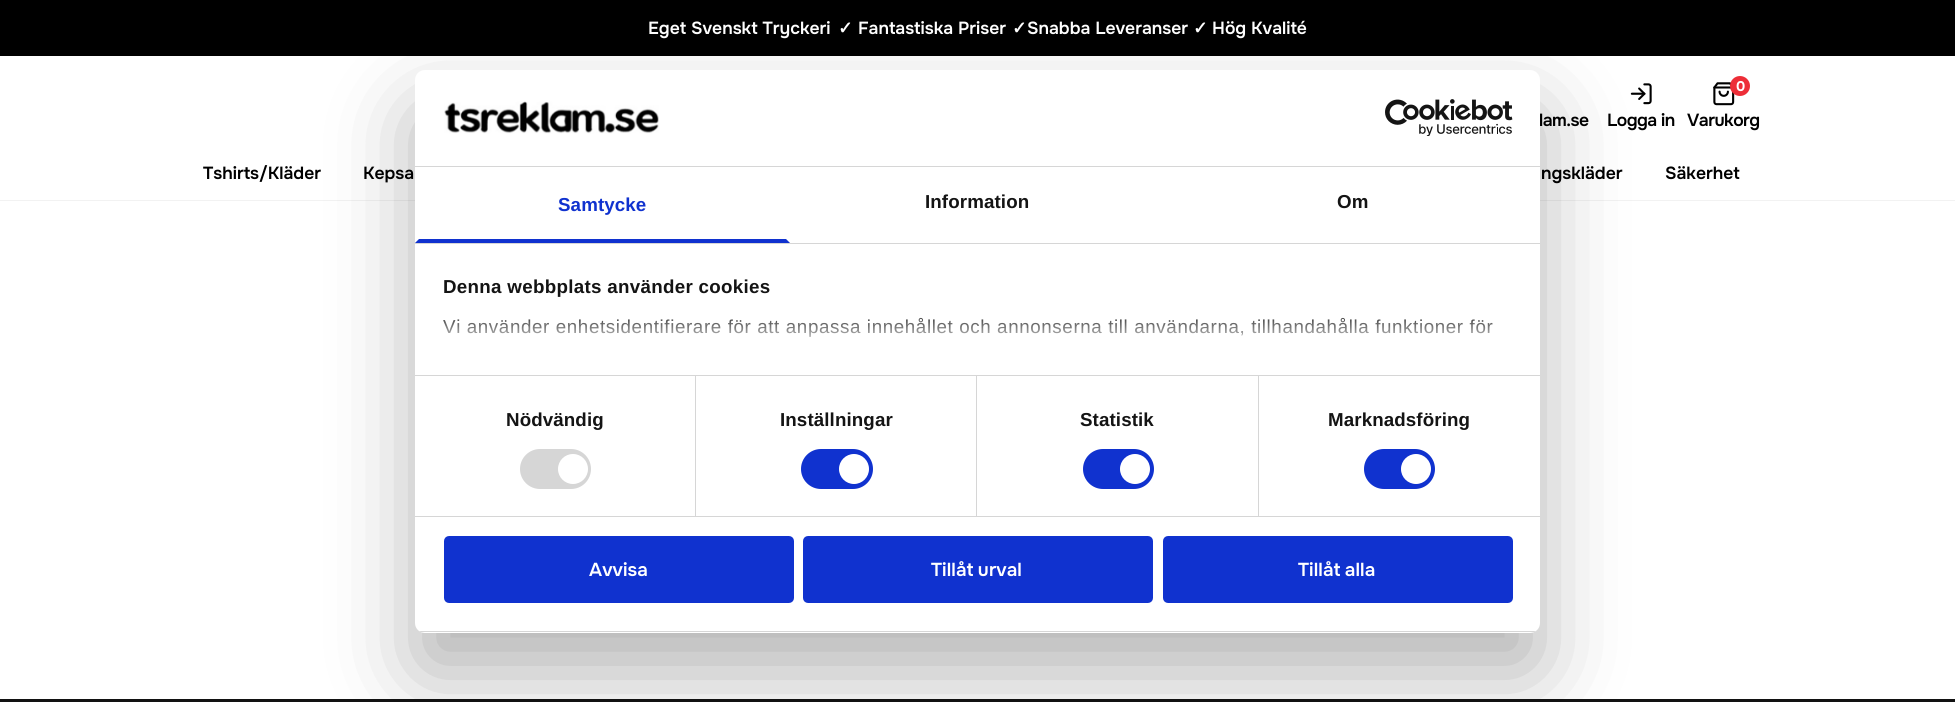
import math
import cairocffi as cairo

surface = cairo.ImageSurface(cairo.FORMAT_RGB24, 1957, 702)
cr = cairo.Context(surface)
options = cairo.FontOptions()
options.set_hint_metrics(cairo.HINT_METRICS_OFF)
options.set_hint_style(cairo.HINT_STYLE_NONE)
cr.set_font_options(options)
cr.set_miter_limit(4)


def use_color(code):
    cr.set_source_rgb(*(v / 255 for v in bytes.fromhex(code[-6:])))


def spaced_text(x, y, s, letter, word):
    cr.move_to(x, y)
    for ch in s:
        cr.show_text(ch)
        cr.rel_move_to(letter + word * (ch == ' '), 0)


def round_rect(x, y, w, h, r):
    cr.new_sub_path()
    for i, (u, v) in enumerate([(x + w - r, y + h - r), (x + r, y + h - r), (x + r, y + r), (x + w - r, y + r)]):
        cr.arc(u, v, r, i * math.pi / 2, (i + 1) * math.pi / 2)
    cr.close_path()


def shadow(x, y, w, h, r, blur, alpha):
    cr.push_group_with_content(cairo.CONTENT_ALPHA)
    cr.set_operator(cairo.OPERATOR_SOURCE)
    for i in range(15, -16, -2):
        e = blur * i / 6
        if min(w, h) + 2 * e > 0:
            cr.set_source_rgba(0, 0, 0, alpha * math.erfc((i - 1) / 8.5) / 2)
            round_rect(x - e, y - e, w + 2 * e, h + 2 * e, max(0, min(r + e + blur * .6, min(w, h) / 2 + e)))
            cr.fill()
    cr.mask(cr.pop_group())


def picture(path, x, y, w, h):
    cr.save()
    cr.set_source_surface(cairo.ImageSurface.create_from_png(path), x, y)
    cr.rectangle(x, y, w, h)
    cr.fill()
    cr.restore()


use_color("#ffffff")
cr.paint()
use_color("#000000")
cr.rectangle(0, 0, 1955, 56)
cr.fill()
cr.select_font_face("Onest SemiBold")
cr.set_font_size(17.5)
use_color("#ffffff")
cr.move_to(648, 34)
cr.show_text("Eget Svenskt Tryckeri")
cr.select_font_face("DejaVu Sans", cairo.FONT_SLANT_NORMAL, cairo.FONT_WEIGHT_BOLD)
cr.move_to(838, 34)
cr.show_text("✓")
cr.select_font_face("Onest SemiBold")
cr.move_to(858, 34)
cr.show_text("Fantastiska Priser")
cr.select_font_face("DejaVu Sans", cairo.FONT_SLANT_NORMAL, cairo.FONT_WEIGHT_BOLD)
cr.move_to(1012, 34)
cr.show_text("✓")
cr.select_font_face("Onest SemiBold")
cr.move_to(1027, 34)
cr.show_text("Snabba Leveranser")
cr.select_font_face("DejaVu Sans", cairo.FONT_SLANT_NORMAL, cairo.FONT_WEIGHT_BOLD)
cr.move_to(1193, 34)
cr.show_text("✓")
cr.select_font_face("Onest SemiBold")
cr.move_to(1212, 34)
cr.show_text("Hög Kvalité")
use_color("#000000")
spaced_text(1539, 126, "lam.se", -0.5, 0)
picture("img1.png", 1630, 83, 22, 22)
spaced_text(1607, 126, "Logga in", -0.5, 0)
picture("img2.png", 1713, 82, 22, 24)
use_color("#ed2e38")
cr.arc(1740, 86, 10, 0, 2 * math.pi)
cr.fill()
cr.select_font_face("Onest", cairo.FONT_SLANT_NORMAL, cairo.FONT_WEIGHT_BOLD)
cr.set_font_size(14)
use_color("#ffffff")
spaced_text(1736, 91, "0", -0.5, 0)
cr.select_font_face("Onest SemiBold")
cr.set_font_size(17.5)
use_color("#000000")
spaced_text(1687, 126, "Varukorg", -0.5, 0)
use_color("#f2f2f2")
cr.rectangle(0, 200, 1955, 1)
cr.fill()
cr.save()
cr.rectangle(203, 145, 1550, 55)
cr.clip()
use_color("#000000")
cr.move_to(203, 179)
cr.show_text("Tshirts/Kläder")
cr.restore()
use_color("#000000")
cr.move_to(363, 179)
cr.show_text("Kepsa")
cr.move_to(1541, 179)
cr.show_text("ngskläder")
cr.move_to(1665, 179)
cr.show_text("Säkerhet")
use_color("#121212")
cr.rectangle(0, 699, 1955, 3)
cr.fill()
use_color("#000000")
shadow(415, 110, 1125, 563, 10, 42.5, 0.3)
use_color("#ffffff")
round_rect(415, 70, 1125, 563, 10)
cr.fill()
use_color("#d6d6d6")
cr.rectangle(415, 166, 1125, 1)
cr.fill()
picture("img3.png", 444, 101, 215, 33)
picture("img4.png", 1385, 99, 128, 37)
cr.rectangle(415, 243, 1125, 1)
cr.fill()
use_color("#1032cf")
cr.new_path()
cr.move_to(790, 243)
cr.line_to(415, 243)
cr.line_to(419, 239)
cr.line_to(786, 239)
cr.close_path()
cr.fill()
cr.select_font_face("Liberation Sans", cairo.FONT_SLANT_NORMAL, cairo.FONT_WEIGHT_BOLD)
cr.set_font_size(18.75)
spaced_text(558, 211, "Samtycke", 0.1, 0)
use_color("#141414")
spaced_text(925, 208, "Information", 0.1, 0)
spaced_text(1337, 208, "Om", 0.1, 0)
use_color("#d6d6d6")
cr.rectangle(415, 375, 1125, 1)
cr.fill()
use_color("#141414")
spaced_text(443, 293, "Denna webbplats använder cookies", 0.3, 0)
cr.select_font_face("Liberation Sans")
spaced_text(443, 333, "Vi använder enhetsidentifierare för att anpassa innehållet och annonserna till användarna, tillhandahålla funktioner för", 0.62, 0)
gradient = cairo.LinearGradient(965, 375, 965, 309)
gradient.add_color_stop_rgba(0, 1, 1, 1, 1)
gradient.add_color_stop_rgba(0.5, 1, 1, 1, 0.8)
gradient.add_color_stop_rgba(1, 1, 1, 1, 0)
cr.set_source(gradient)
cr.rectangle(443, 317, 1050, 20)
cr.fill()
use_color("#d6d6d6")
cr.rectangle(415, 516, 1125, 1)
cr.fill()
cr.rectangle(695, 376, 1, 140)
cr.fill()
cr.select_font_face("Liberation Sans", cairo.FONT_SLANT_NORMAL, cairo.FONT_WEIGHT_BOLD)
use_color("#141414")
spaced_text(506, 426, "Nödvändig", 0.1, 0)
use_color("#d6d6d6")
round_rect(520, 449, 71, 40, 20)
cr.fill()
use_color("#ffffff")
cr.arc(573, 469, 15, 0, 2 * math.pi)
cr.fill()
use_color("#d6d6d6")
cr.rectangle(976, 376, 1, 140)
cr.fill()
use_color("#141414")
spaced_text(780, 426, "Inställningar", 0.1, 0)
use_color("#1032cf")
round_rect(801, 449, 72, 40, 20)
cr.fill()
use_color("#ffffff")
cr.arc(854, 469, 15, 0, 2 * math.pi)
cr.fill()
use_color("#d6d6d6")
cr.rectangle(1258, 376, 1, 140)
cr.fill()
use_color("#141414")
spaced_text(1080, 426, "Statistik", 0.1, 0)
use_color("#1032cf")
round_rect(1083, 449, 71, 40, 20)
cr.fill()
use_color("#ffffff")
cr.arc(1135, 469, 15, 0, 2 * math.pi)
cr.fill()
use_color("#141414")
spaced_text(1328, 426, "Marknadsföring", 0.1, 0)
use_color("#1032cf")
round_rect(1364, 449, 71, 40, 20)
cr.fill()
use_color("#ffffff")
cr.arc(1416, 469, 15, 0, 2 * math.pi)
cr.fill()
cr.save()
round_rect(415, 70, 1125, 563, 10)
cr.clip()
use_color("#d6d6d6")
cr.rectangle(415, 631, 1125, 1)
cr.fill()
cr.restore()
use_color("#1032cf")
round_rect(445.5, 537.5, 347, 64, 3.5)
cr.fill_preserve()
cr.set_line_width(3)
cr.stroke()
cr.select_font_face("Onest SemiBold")
use_color("#ffffff")
spaced_text(589, 576, "Avvisa", 0.1, 0)
use_color("#1032cf")
round_rect(804.5, 537.5, 347, 64, 3.5)
cr.fill_preserve()
cr.stroke()
use_color("#ffffff")
spaced_text(931, 576, "Tillåt urval", 0.1, -1)
use_color("#1032cf")
round_rect(1164.5, 537.5, 347, 64, 3.5)
cr.fill_preserve()
cr.stroke()
use_color("#ffffff")
spaced_text(1298, 576, "Tillåt alla", 0.1, -1)
surface.write_to_png("result.png")
